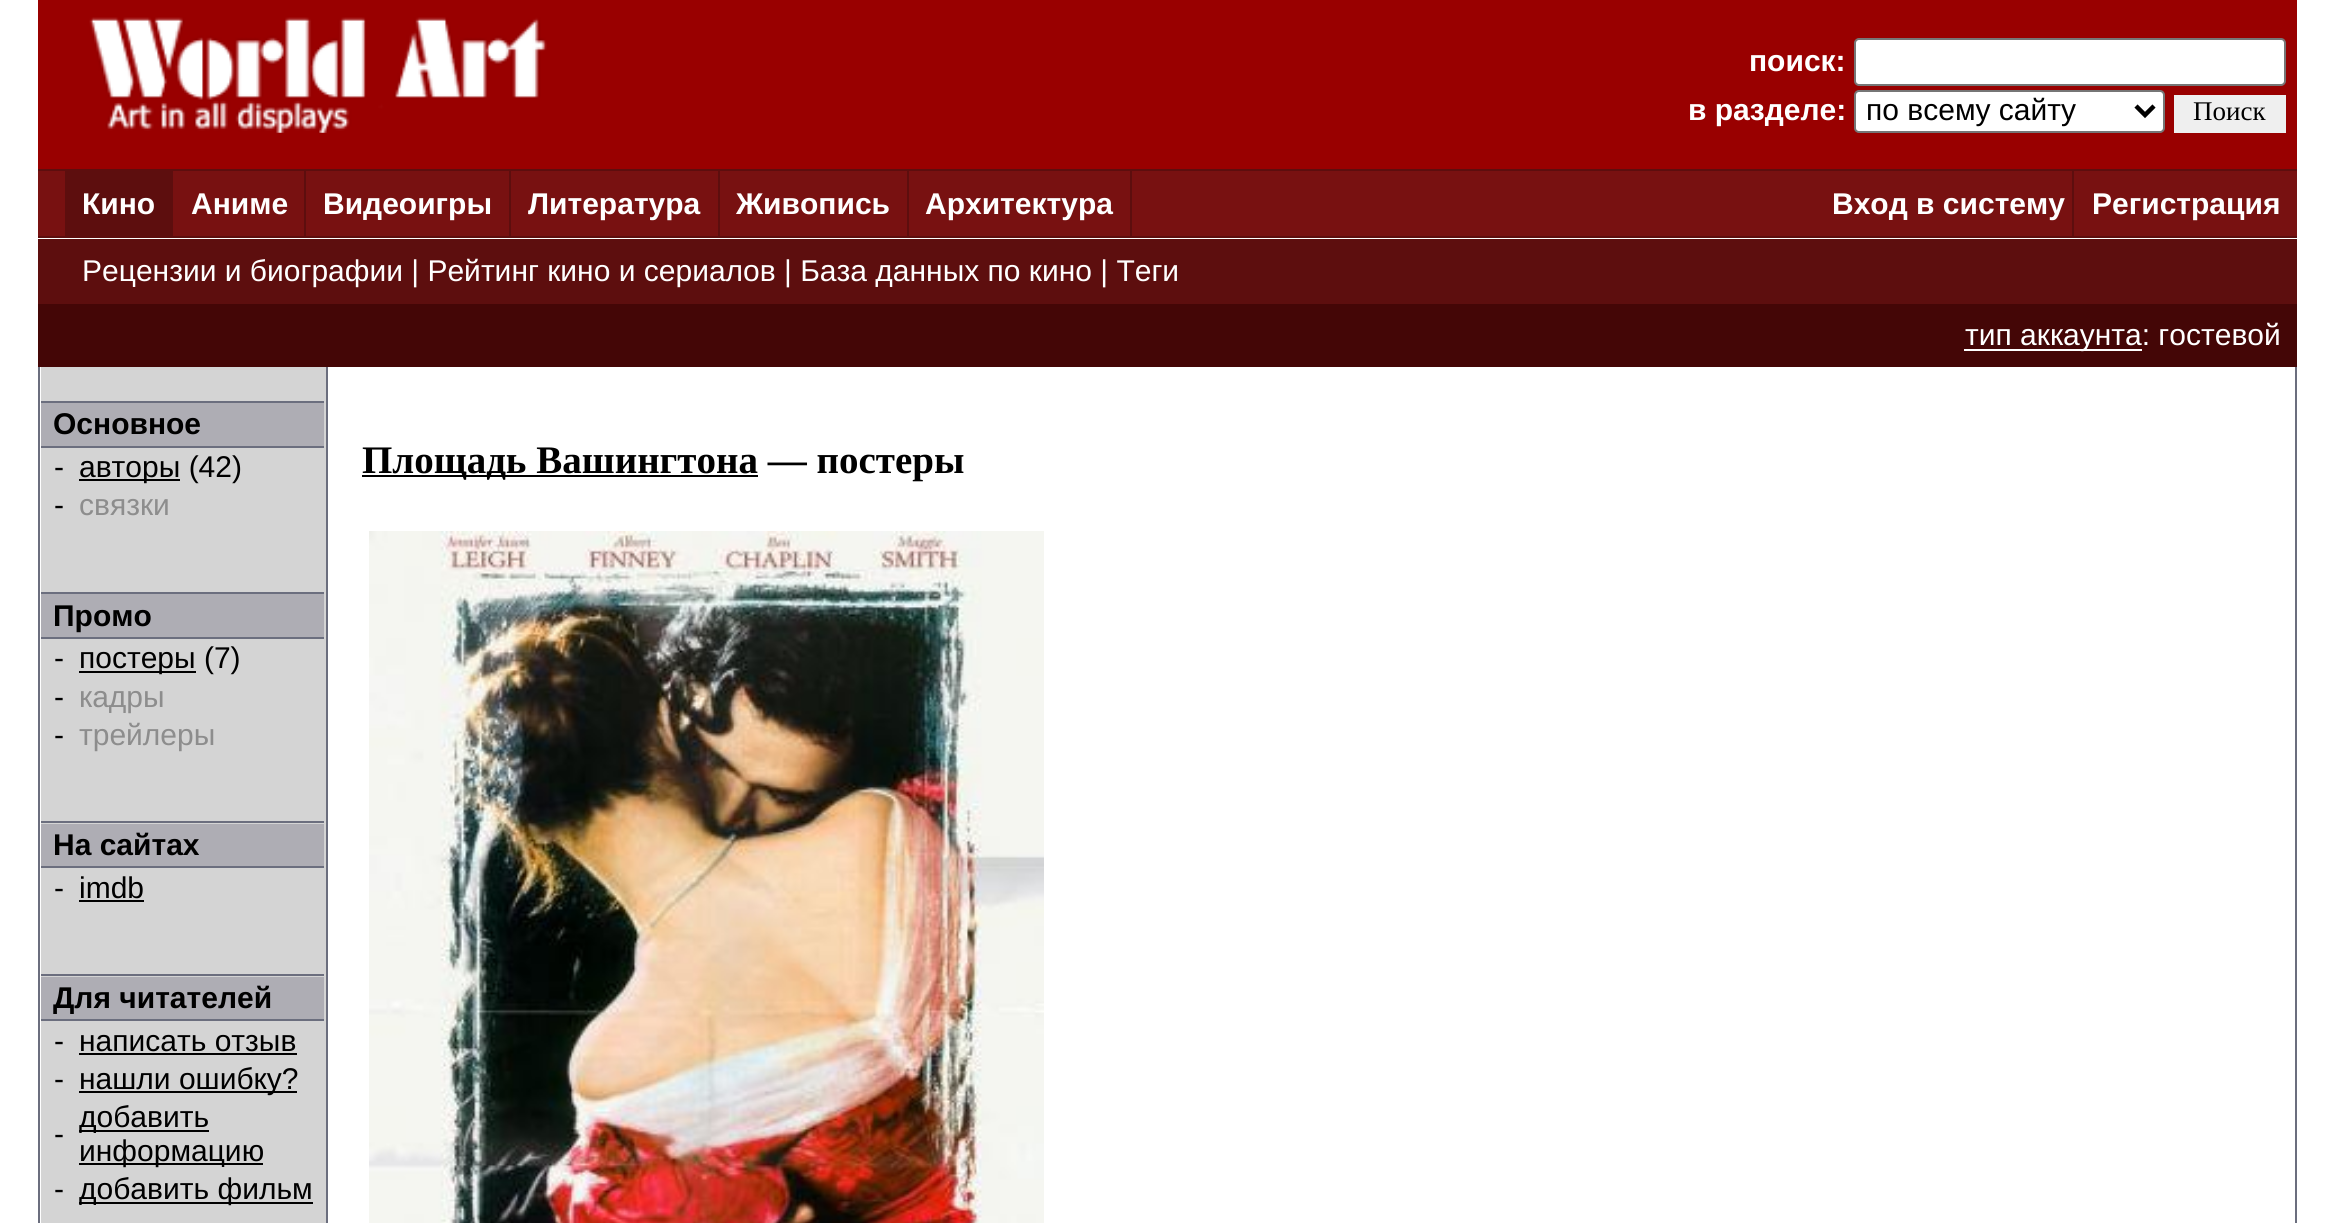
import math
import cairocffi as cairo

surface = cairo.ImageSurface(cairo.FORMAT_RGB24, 2334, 1223)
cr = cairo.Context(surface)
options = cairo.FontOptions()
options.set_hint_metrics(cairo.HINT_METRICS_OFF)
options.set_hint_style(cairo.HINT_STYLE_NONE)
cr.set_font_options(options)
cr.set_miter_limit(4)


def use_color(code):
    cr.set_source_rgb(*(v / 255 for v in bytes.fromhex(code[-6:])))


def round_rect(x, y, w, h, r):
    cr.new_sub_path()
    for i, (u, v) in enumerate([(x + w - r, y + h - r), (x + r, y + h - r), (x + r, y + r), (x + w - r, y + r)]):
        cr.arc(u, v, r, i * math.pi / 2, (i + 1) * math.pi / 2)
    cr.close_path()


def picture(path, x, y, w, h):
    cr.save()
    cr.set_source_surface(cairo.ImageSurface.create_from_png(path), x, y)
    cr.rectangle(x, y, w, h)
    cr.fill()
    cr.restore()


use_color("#ffffff")
cr.paint()
use_color("#990000")
cr.rectangle(38, 0, 2259, 169)
cr.fill()
picture("img1.png", 89, 17, 458, 116)
cr.select_font_face("Liberation Sans", cairo.FONT_SLANT_NORMAL, cairo.FONT_WEIGHT_BOLD)
cr.set_font_size(30)
use_color("#ffffff")
cr.move_to(1749, 71)
cr.show_text("поиск:")
round_rect(1855, 39, 430, 46, 4)
cr.fill_preserve()
use_color("#767676")
cr.stroke()
use_color("#ffffff")
cr.move_to(1688, 120)
cr.show_text("в разделе:")
round_rect(1855, 91, 309, 41, 4)
cr.fill_preserve()
use_color("#767676")
cr.stroke()
cr.new_path()
cr.move_to(2136, 106)
cr.line_to(2145, 115)
cr.line_to(2154, 106)
use_color("#000000")
cr.set_line_width(4.5)
cr.stroke()
cr.select_font_face("Liberation Sans")
cr.move_to(1866, 120)
cr.show_text("по всему сайту")
use_color("#efefef")
cr.rectangle(2174, 95, 112, 38)
cr.fill()
cr.select_font_face("Liberation Serif")
cr.set_font_size(27)
use_color("#000000")
cr.move_to(2193, 120)
cr.show_text("Поиск")
use_color("#5d0e0e")
cr.rectangle(38, 169, 2259, 2)
cr.fill()
use_color("#781111")
cr.rectangle(38, 171, 2259, 65)
cr.fill()
use_color("#5d0e0e")
cr.rectangle(65, 171, 108, 65)
cr.fill()
cr.select_font_face("Liberation Sans", cairo.FONT_SLANT_NORMAL, cairo.FONT_WEIGHT_BOLD)
cr.set_font_size(30)
use_color("#ffffff")
cr.move_to(82, 214)
cr.show_text("Кино")
cr.move_to(191, 214)
cr.show_text("Аниме")
use_color("#5d0e0e")
cr.rectangle(304, 171, 2, 65)
cr.fill()
use_color("#ffffff")
cr.move_to(323, 214)
cr.show_text("Видеоигры")
use_color("#5d0e0e")
cr.rectangle(509, 171, 2, 65)
cr.fill()
use_color("#ffffff")
cr.move_to(528, 214)
cr.show_text("Литература")
use_color("#5d0e0e")
cr.rectangle(718, 171, 2, 65)
cr.fill()
use_color("#ffffff")
cr.move_to(736, 214)
cr.show_text("Живопись")
use_color("#5d0e0e")
cr.rectangle(907, 171, 2, 65)
cr.fill()
use_color("#ffffff")
cr.move_to(925, 214)
cr.show_text("Архитектура")
use_color("#5d0e0e")
cr.rectangle(1130, 171, 2, 65)
cr.fill()
use_color("#ffffff")
cr.move_to(1832, 214)
cr.show_text("Вход в систему")
use_color("#5d0e0e")
cr.rectangle(2072, 171, 2, 65)
cr.fill()
use_color("#ffffff")
cr.move_to(2092, 214)
cr.show_text("Регистрация")
use_color("#5d0e0e")
cr.rectangle(38, 236, 2259, 2)
cr.fill()
cr.rectangle(38, 239, 2259, 65)
cr.fill()
cr.select_font_face("Liberation Sans")
use_color("#ffffff")
cr.move_to(82, 281)
cr.show_text("Рецензии и биографии | Рейтинг кино и сериалов | База данных по кино | Теги")
use_color("#440606")
cr.rectangle(38, 304, 2259, 63)
cr.fill()
use_color("#ffffff")
cr.rectangle(1964, 349, 178, 2)
cr.fill()
cr.move_to(1965, 345)
cr.show_text("тип аккаунта: гостевой")
use_color("#6b6e7e")
cr.rectangle(38, 367, 2, 856)
cr.fill()
use_color("#d4d4d4")
cr.rectangle(41, 367, 285, 856)
cr.fill()
use_color("#6b6e7e")
cr.rectangle(41, 401, 283, 2)
cr.fill()
use_color("#aeadb4")
cr.rectangle(41, 403, 283, 43)
cr.fill()
cr.select_font_face("Liberation Sans", cairo.FONT_SLANT_NORMAL, cairo.FONT_WEIGHT_BOLD)
use_color("#000000")
cr.move_to(53, 434)
cr.show_text("Основное")
use_color("#6b6e7e")
cr.rectangle(41, 446, 283, 2)
cr.fill()
cr.select_font_face("Liberation Sans")
use_color("#000000")
cr.move_to(54, 477)
cr.show_text("-")
cr.rectangle(79, 479, 101, 2)
cr.fill()
cr.move_to(79, 477)
cr.show_text("авторы (42)")
cr.move_to(54, 515)
cr.show_text("-")
use_color("#8d8d8d")
cr.move_to(79, 515)
cr.show_text("связки")
use_color("#6b6e7e")
cr.rectangle(41, 592, 283, 2)
cr.fill()
use_color("#aeadb4")
cr.rectangle(41, 594, 283, 43)
cr.fill()
cr.select_font_face("Liberation Sans", cairo.FONT_SLANT_NORMAL, cairo.FONT_WEIGHT_BOLD)
use_color("#000000")
cr.move_to(53, 626)
cr.show_text("Промо")
use_color("#6b6e7e")
cr.rectangle(41, 637, 283, 2)
cr.fill()
cr.select_font_face("Liberation Sans")
use_color("#000000")
cr.move_to(54, 668)
cr.show_text("-")
cr.rectangle(79, 671, 117, 2)
cr.fill()
cr.move_to(79, 668)
cr.show_text("постеры (7)")
cr.move_to(54, 707)
cr.show_text("-")
use_color("#8d8d8d")
cr.move_to(79, 707)
cr.show_text("кадры")
use_color("#000000")
cr.move_to(54, 745)
cr.show_text("-")
use_color("#8d8d8d")
cr.move_to(79, 745)
cr.show_text("трейлеры")
use_color("#6b6e7e")
cr.rectangle(41, 821, 283, 2)
cr.fill()
use_color("#aeadb4")
cr.rectangle(41, 824, 283, 42)
cr.fill()
cr.select_font_face("Liberation Sans", cairo.FONT_SLANT_NORMAL, cairo.FONT_WEIGHT_BOLD)
use_color("#000000")
cr.move_to(53, 855)
cr.show_text("На сайтах")
use_color("#6b6e7e")
cr.rectangle(41, 866, 283, 2)
cr.fill()
cr.select_font_face("Liberation Sans")
use_color("#000000")
cr.move_to(54, 898)
cr.show_text("-")
cr.move_to(79, 898)
cr.show_text("imdb")
cr.rectangle(79, 900, 65, 2)
cr.fill()
use_color("#6b6e7e")
cr.rectangle(41, 974, 283, 2)
cr.fill()
use_color("#aeadb4")
cr.rectangle(41, 977, 283, 42)
cr.fill()
cr.select_font_face("Liberation Sans", cairo.FONT_SLANT_NORMAL, cairo.FONT_WEIGHT_BOLD)
use_color("#000000")
cr.move_to(53, 1008)
cr.show_text("Для читателей")
use_color("#6b6e7e")
cr.rectangle(41, 1019, 283, 2)
cr.fill()
cr.select_font_face("Liberation Sans")
use_color("#000000")
cr.move_to(54, 1051)
cr.show_text("-")
cr.move_to(79, 1051)
cr.show_text("написать отзыв")
cr.rectangle(79, 1053, 218, 2)
cr.fill()
cr.move_to(54, 1089)
cr.show_text("-")
cr.rectangle(79, 1091, 218, 2)
cr.fill()
cr.move_to(79, 1089)
cr.show_text("нашли ошибку?")
cr.move_to(54, 1144)
cr.show_text("-")
cr.rectangle(79, 1130, 130, 2)
cr.fill()
cr.move_to(79, 1127)
cr.show_text("добавить")
cr.rectangle(79, 1163, 184, 2)
cr.fill()
cr.move_to(79, 1161)
cr.show_text("информацию")
cr.move_to(54, 1199)
cr.show_text("-")
cr.rectangle(79, 1202, 234, 2)
cr.fill()
cr.move_to(79, 1199)
cr.show_text("добавить фильм")
use_color("#6b6e7e")
cr.rectangle(326, 367, 2, 856)
cr.fill()
use_color("#000000")
cr.rectangle(362, 475, 396, 2)
cr.fill()
cr.select_font_face("Liberation Serif", cairo.FONT_SLANT_NORMAL, cairo.FONT_WEIGHT_BOLD)
cr.set_font_size(39)
cr.move_to(362, 473)
cr.show_text("Площадь Вашингтона — постеры")
picture("img2.png", 369, 531, 675, 692)
use_color("#6b6e7e")
cr.rectangle(2295, 367, 2, 856)
cr.fill()
surface.write_to_png("result.png")
